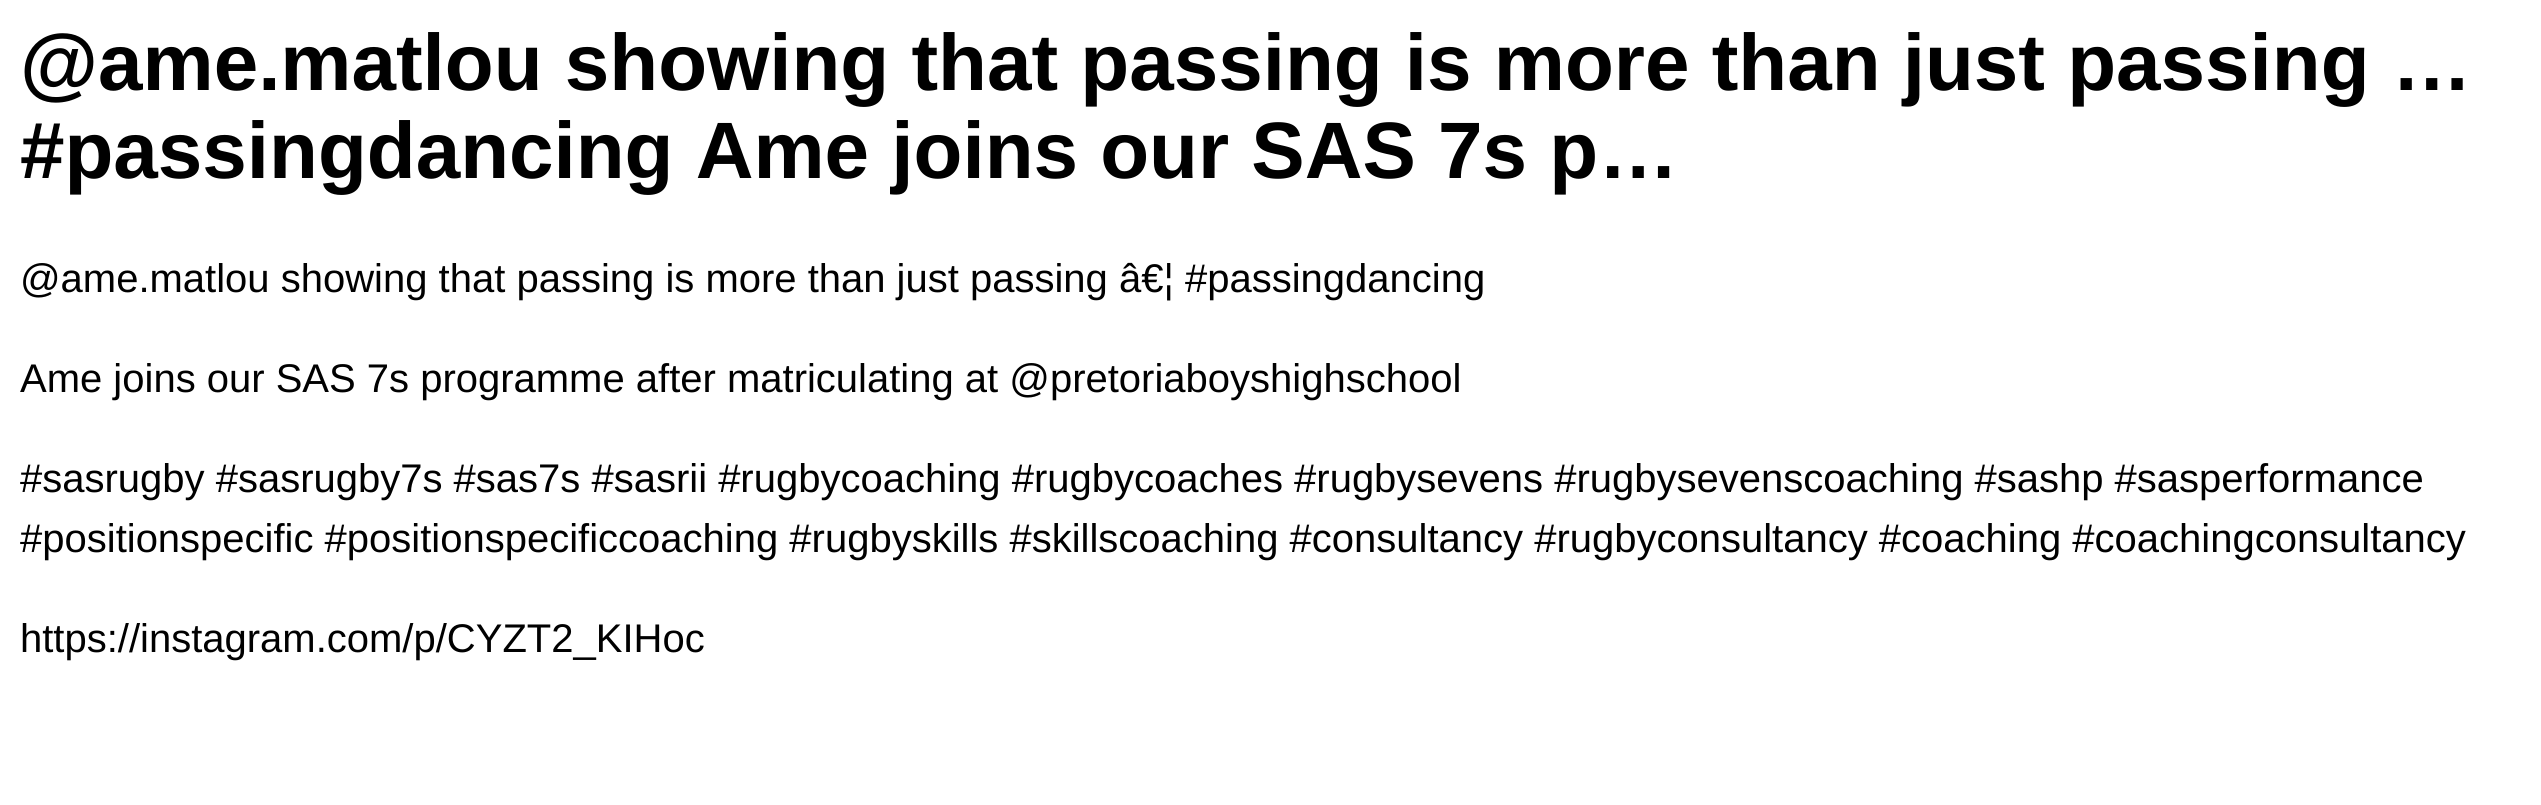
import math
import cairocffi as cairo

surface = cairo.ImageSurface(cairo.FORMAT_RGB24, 2541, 805)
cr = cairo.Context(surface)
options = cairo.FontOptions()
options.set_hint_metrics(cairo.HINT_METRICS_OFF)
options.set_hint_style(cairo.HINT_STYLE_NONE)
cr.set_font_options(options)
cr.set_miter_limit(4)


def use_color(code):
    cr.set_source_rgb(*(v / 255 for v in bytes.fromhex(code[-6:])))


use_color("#ffffff")
cr.paint()
cr.select_font_face("Liberation Sans", cairo.FONT_SLANT_NORMAL, cairo.FONT_WEIGHT_BOLD)
cr.set_font_size(80)
use_color("#000000")
cr.move_to(20, 90)
cr.show_text("@ame.matlou showing that passing is more than just passing …")
cr.move_to(20, 178)
cr.show_text("#passingdancing Ame joins our SAS 7s p…")
cr.select_font_face("Liberation Sans")
cr.set_font_size(40)
cr.move_to(20, 292)
cr.show_text("@ame.matlou showing that passing is more than just passing â€¦ #passingdancing")
cr.move_to(20, 392)
cr.show_text("Ame joins our SAS 7s programme after matriculating at @pretoriaboyshighschool")
cr.move_to(20, 492)
cr.show_text("#sasrugby #sasrugby7s #sas7s #sasrii #rugbycoaching #rugbycoaches #rugbysevens #rugbysevenscoaching #sashp #sasperformance")
cr.move_to(20, 552)
cr.show_text("#positionspecific #positionspecificcoaching #rugbyskills #skillscoaching #consultancy #rugbyconsultancy #coaching #coachingconsultancy")
cr.move_to(20, 652)
cr.show_text("https://instagram.com/p/CYZT2_KIHoc")
surface.write_to_png("result.png")
